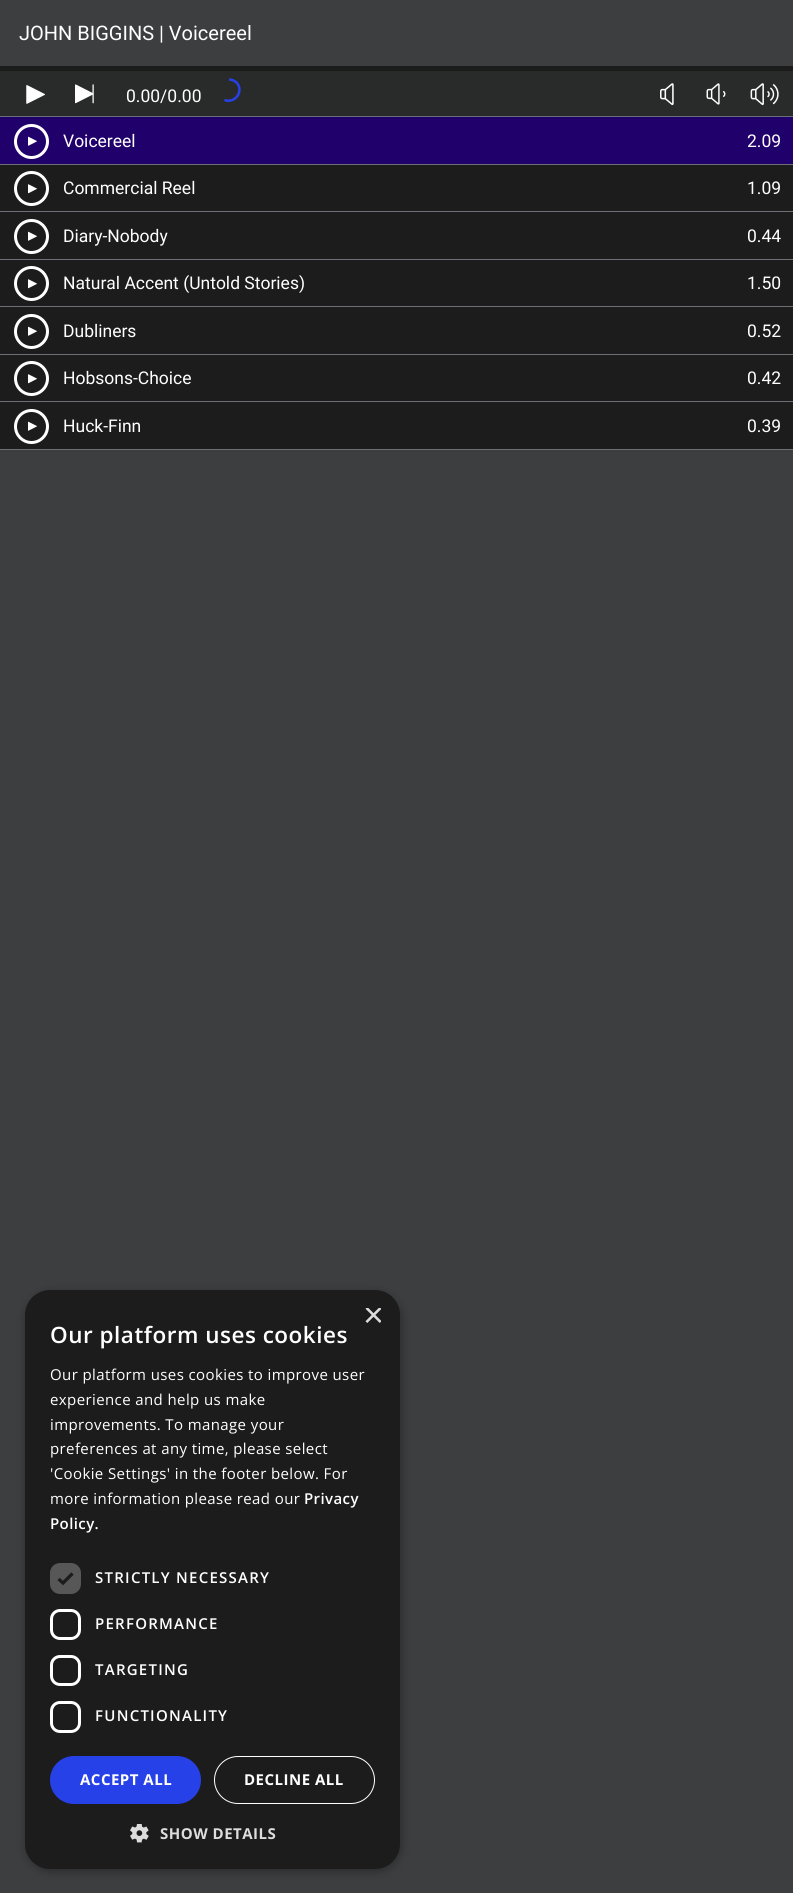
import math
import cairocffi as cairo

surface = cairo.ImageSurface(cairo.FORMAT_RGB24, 793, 1893)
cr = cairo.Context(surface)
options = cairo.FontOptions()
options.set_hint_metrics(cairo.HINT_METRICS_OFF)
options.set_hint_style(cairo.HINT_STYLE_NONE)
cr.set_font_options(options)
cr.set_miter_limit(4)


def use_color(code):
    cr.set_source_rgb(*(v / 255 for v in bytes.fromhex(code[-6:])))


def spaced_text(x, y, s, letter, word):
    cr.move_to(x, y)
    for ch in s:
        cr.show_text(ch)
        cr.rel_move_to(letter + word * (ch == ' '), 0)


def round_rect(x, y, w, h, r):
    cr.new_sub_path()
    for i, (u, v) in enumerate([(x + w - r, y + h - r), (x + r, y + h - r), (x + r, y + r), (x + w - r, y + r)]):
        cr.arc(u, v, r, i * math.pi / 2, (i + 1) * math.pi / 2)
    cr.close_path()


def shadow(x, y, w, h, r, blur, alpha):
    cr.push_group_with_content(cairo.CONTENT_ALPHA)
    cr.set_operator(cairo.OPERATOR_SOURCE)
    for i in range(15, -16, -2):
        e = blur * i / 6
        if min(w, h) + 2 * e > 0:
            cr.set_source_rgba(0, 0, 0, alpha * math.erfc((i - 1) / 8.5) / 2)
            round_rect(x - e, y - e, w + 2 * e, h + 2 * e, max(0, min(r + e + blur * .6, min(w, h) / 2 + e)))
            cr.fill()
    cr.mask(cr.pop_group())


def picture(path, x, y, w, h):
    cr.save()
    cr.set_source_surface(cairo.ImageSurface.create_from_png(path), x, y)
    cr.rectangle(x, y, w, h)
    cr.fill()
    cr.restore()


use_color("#3d3e3f")
cr.paint()
cr.select_font_face("Roboto")
cr.set_font_size(20)
use_color("#ffffff")
cr.move_to(19, 40)
cr.show_text("JOHN BIGGINS | Voicereel")
use_color("#1c1c1c")
cr.rectangle(0, 66, 793, 5)
cr.fill()
use_color("#292a2a")
cr.rectangle(0, 71, 793, 45)
cr.fill()
picture("img1.png", 26, 85, 19, 19)
picture("img2.png", 75, 84, 19, 20)
cr.set_font_size(17.5)
use_color("#ffffff")
cr.move_to(126, 102)
cr.show_text("0.00/0.00")
cr.new_path()
cr.move_to(229, 79.5)
cr.curve_to(231.5, 79.5, 234.5, 80.5, 236.5, 82.5)
cr.curve_to(244.5, 91, 235, 104, 224.5, 100)
use_color("#2741e8")
cr.set_line_width(2.5)
cr.stroke()
picture("img3.png", 660, 83, 14, 23)
picture("img4.png", 706, 83, 20, 22)
picture("img5.png", 750, 83, 29, 23)
use_color("#1c1c1c")
cr.rectangle(0, 165, 793, 284)
cr.fill()
use_color("#6e6e77")
cr.rectangle(0, 449, 793, 1)
cr.fill()
use_color("#20016b")
cr.rectangle(0, 117, 793, 47)
cr.fill()
use_color("#6e6e77")
cr.rectangle(0, 116, 793, 1)
cr.fill()
cr.arc(31.5, 141.5, 16, 0, 2 * math.pi)
use_color("#ffffff")
cr.set_line_width(3)
cr.stroke()
picture("img6.png", 28, 136, 9, 10)
cr.move_to(63, 147)
cr.show_text("Voicereel")
cr.move_to(747, 147)
cr.show_text("2.09")
use_color("#6e6e77")
cr.rectangle(0, 164, 793, 1)
cr.fill()
cr.arc(31.5, 188.5, 16, 0, 2 * math.pi)
use_color("#ffffff")
cr.stroke()
picture("img7.png", 28, 184, 9, 10)
cr.move_to(63, 194)
cr.show_text("Commercial Reel")
cr.move_to(747, 194)
cr.show_text("1.09")
use_color("#6e6e77")
cr.rectangle(0, 211, 793, 1)
cr.fill()
cr.arc(31.5, 236.5, 16, 0, 2 * math.pi)
use_color("#ffffff")
cr.stroke()
picture("img8.png", 28, 231, 9, 10)
cr.move_to(63, 242)
cr.show_text("Diary-Nobody")
cr.move_to(747, 242)
cr.show_text("0.44")
use_color("#6e6e77")
cr.rectangle(0, 259, 793, 1)
cr.fill()
cr.arc(31.5, 283.5, 16, 0, 2 * math.pi)
use_color("#ffffff")
cr.stroke()
picture("img7.png", 28, 279, 9, 10)
cr.move_to(63, 289)
cr.show_text("Natural Accent (Untold Stories)")
cr.move_to(747, 289)
cr.show_text("1.50")
use_color("#6e6e77")
cr.rectangle(0, 306, 793, 1)
cr.fill()
cr.arc(31.5, 331.5, 16, 0, 2 * math.pi)
use_color("#ffffff")
cr.stroke()
picture("img8.png", 28, 326, 9, 10)
cr.move_to(63, 337)
cr.show_text("Dubliners")
cr.move_to(747, 337)
cr.show_text("0.52")
use_color("#6e6e77")
cr.rectangle(0, 354, 793, 1)
cr.fill()
cr.arc(31.5, 378.5, 16, 0, 2 * math.pi)
use_color("#ffffff")
cr.stroke()
picture("img7.png", 28, 374, 9, 10)
cr.move_to(63, 384)
cr.show_text("Hobsons-Choice")
cr.move_to(747, 384)
cr.show_text("0.42")
use_color("#6e6e77")
cr.rectangle(0, 401, 793, 1)
cr.fill()
cr.arc(31.5, 426.5, 16, 0, 2 * math.pi)
use_color("#ffffff")
cr.stroke()
picture("img8.png", 28, 421, 9, 10)
cr.move_to(63, 432)
cr.show_text("Huck-Finn")
cr.move_to(747, 432)
cr.show_text("0.39")
use_color("#000000")
shadow(26, 1293, 375, 578, 25, 5, 0.35)
use_color("#1c1c1c")
round_rect(25, 1290, 375, 579, 25)
cr.fill()
cr.save()
cr.rectangle(363, 1308, 18, 18)
cr.clip()
cr.select_font_face("Liberation Sans")
cr.set_font_size(36)
use_color("#dddddd")
cr.move_to(363, 1327)
cr.show_text("×")
cr.restore()
cr.select_font_face("Open Sans SemiBold")
cr.set_font_size(22.5)
use_color("#ffffff")
spaced_text(50, 1343, "Our platform uses cookies", 0.5, 0)
cr.select_font_face("Open Sans")
cr.set_font_size(15)
spaced_text(50, 1380, "Our platform uses cookies to improve user", 0.4, 0)
spaced_text(50, 1405, "experience and help us make", 0.4, 0)
spaced_text(50, 1430, "improvements. To manage your", 0.4, 0)
spaced_text(50, 1454, "preferences at any time, please select", 0.4, 0)
spaced_text(50, 1479, "'Cookie Settings' in the footer below. For", 0.4, 0)
spaced_text(50, 1504, "more information please read our", 0.4, 0)
cr.select_font_face("Open Sans SemiBold")
spaced_text(304, 1504, "Privacy", 0.4, 0)
spaced_text(50, 1529, "Policy.", 0.4, 0)
use_color("#575757")
round_rect(50, 1563, 31, 31, 10)
cr.fill()
cr.new_path()
cr.move_to(58.5, 1579)
cr.line_to(63, 1583)
cr.line_to(72.5, 1573.5)
use_color("#1c1c1c")
cr.set_line_width(3.3)
cr.stroke()
use_color("#ffffff")
spaced_text(95, 1583, "STRICTLY NECESSARY", 1.25, 0)
round_rect(51.5, 1610.5, 28, 28, 8.5)
cr.set_line_width(3)
cr.stroke()
spaced_text(95, 1629, "PERFORMANCE", 1.25, 0)
round_rect(51.5, 1656.5, 28, 28, 8.5)
cr.stroke()
spaced_text(95, 1675, "TARGETING", 1.25, 0)
round_rect(51.5, 1702.5, 28, 29, 8.5)
cr.stroke()
spaced_text(95, 1721, "FUNCTIONALITY", 1.25, 0)
use_color("#2741e8")
round_rect(50, 1756, 151, 48, 24)
cr.fill()
cr.select_font_face("Open Sans", cairo.FONT_SLANT_NORMAL, cairo.FONT_WEIGHT_BOLD)
use_color("#ffffff")
spaced_text(80, 1785, "ACCEPT ALL", 0.5, 0)
round_rect(214.5, 1756.5, 160, 47, 23.5)
cr.set_line_width(1)
cr.stroke()
spaced_text(244, 1785, "DECLINE ALL", 0.5, 0)
picture("img9.png", 130, 1824, 19, 19)
use_color("#dddddd")
spaced_text(160, 1839, "SHOW DETAILS", 0.5, 0)
surface.write_to_png("result.png")
